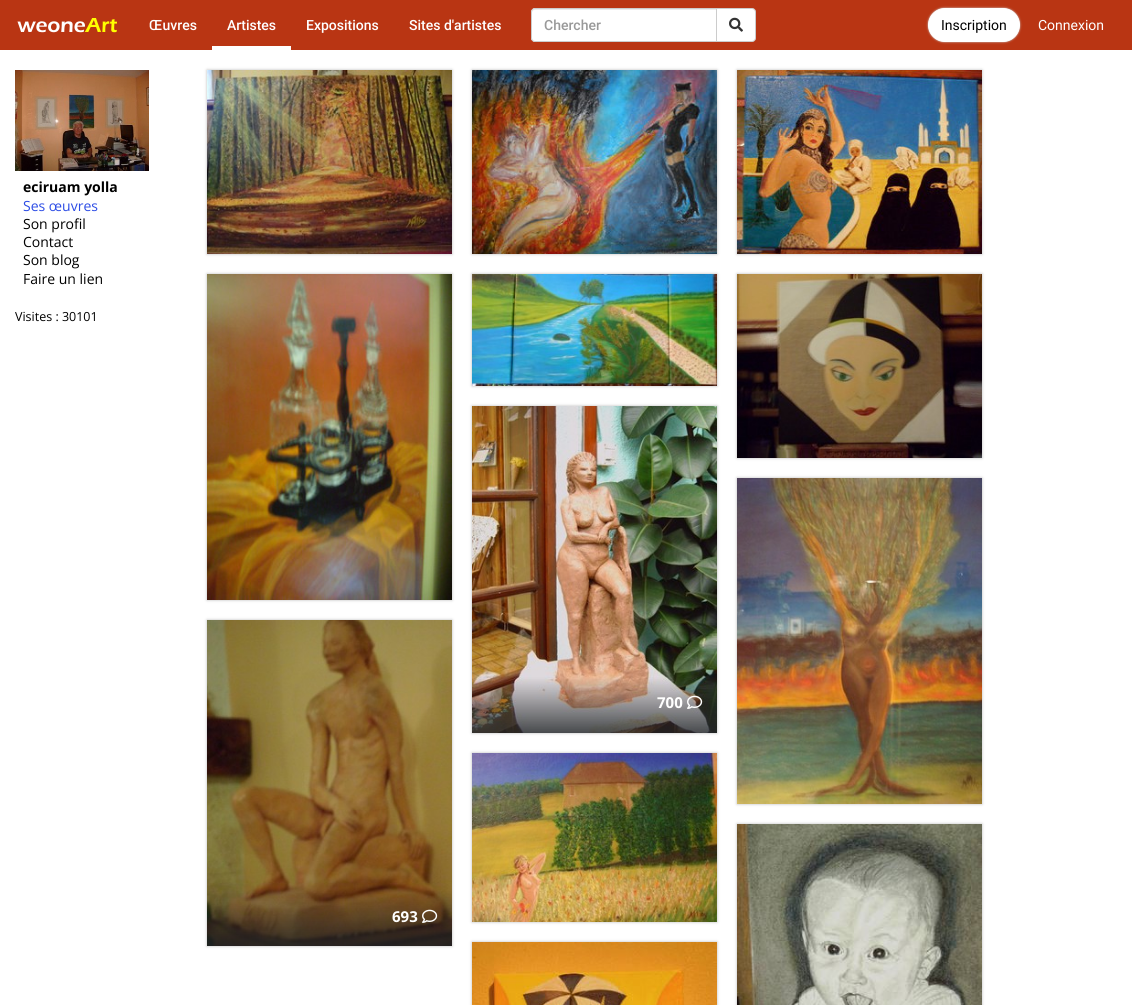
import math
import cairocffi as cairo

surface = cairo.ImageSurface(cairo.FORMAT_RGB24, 1132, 1005)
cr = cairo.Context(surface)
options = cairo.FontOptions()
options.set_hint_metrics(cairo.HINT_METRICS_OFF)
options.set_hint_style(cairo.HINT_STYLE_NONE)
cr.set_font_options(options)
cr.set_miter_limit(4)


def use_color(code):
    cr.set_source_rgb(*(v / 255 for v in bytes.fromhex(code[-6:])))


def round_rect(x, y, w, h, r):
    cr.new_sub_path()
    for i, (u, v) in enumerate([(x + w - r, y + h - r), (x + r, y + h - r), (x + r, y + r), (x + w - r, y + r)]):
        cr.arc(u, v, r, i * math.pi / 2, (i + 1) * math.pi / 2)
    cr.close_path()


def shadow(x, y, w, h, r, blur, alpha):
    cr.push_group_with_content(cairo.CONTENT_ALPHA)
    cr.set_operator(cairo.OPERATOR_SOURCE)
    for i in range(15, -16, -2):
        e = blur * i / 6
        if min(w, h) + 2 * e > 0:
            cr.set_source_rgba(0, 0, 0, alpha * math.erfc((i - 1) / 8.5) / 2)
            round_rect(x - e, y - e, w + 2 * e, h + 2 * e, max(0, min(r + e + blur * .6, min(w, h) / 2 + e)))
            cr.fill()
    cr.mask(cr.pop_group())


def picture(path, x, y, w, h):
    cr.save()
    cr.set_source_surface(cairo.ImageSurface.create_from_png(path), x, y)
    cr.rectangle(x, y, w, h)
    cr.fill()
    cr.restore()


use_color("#ffffff")
cr.paint()
use_color("#b93513")
cr.rectangle(0, 0, 1132, 50)
cr.fill()
picture("img1.png", 17, 18, 100, 15)
cr.select_font_face("Roboto Medium")
cr.set_font_size(14)
use_color("#ffffff")
cr.move_to(149, 30)
cr.show_text("Œuvres")
cr.move_to(227, 30)
cr.show_text("Artistes")
cr.rectangle(212, 46, 79, 4)
cr.fill()
cr.move_to(306, 30)
cr.show_text("Expositions")
cr.move_to(409, 30)
cr.show_text("Sites d'artistes")
cr.new_path()
cr.move_to(535, 8)
cr.line_to(717, 8)
cr.line_to(717, 42)
cr.line_to(535, 42)
cr.curve_to(533, 42, 531, 40, 531, 38)
cr.line_to(531, 12)
cr.curve_to(531, 10, 533, 8, 535, 8)
cr.close_path()
cr.fill()
use_color("#ececec")
cr.new_path()
cr.move_to(535, 10)
cr.line_to(716, 10)
cr.line_to(716, 9)
cr.line_to(534, 9)
cr.curve_to(532, 10, 532, 11, 532, 13)
cr.curve_to(532, 11, 533, 10, 535, 10)
cr.close_path()
cr.fill()
cr.new_path()
cr.move_to(535, 8.5)
cr.line_to(716.5, 8.5)
cr.line_to(716.5, 41.5)
cr.line_to(535, 41.5)
cr.curve_to(533, 41.5, 531.5, 40, 531.5, 38)
cr.line_to(531.5, 12)
cr.curve_to(531.5, 10, 533, 8.5, 535, 8.5)
cr.close_path()
use_color("#cccccc")
cr.set_line_width(1)
cr.stroke()
use_color("#999999")
cr.move_to(544, 30)
cr.show_text("Chercher")
use_color("#ffffff")
cr.new_path()
cr.move_to(716.5, 8.5)
cr.line_to(752, 8.5)
cr.curve_to(754, 8.5, 755.5, 10, 755.5, 12)
cr.line_to(755.5, 38)
cr.curve_to(755.5, 40, 754, 41.5, 752, 41.5)
cr.line_to(716.5, 41.5)
cr.close_path()
cr.fill_preserve()
use_color("#cccccc")
cr.stroke()
picture("img2.png", 729, 17, 14, 15)
use_color("#cccccc")
shadow(928, 8, 92, 34, 17, 1, 1)
use_color("#ffffff")
round_rect(928.5, 8.5, 91, 33, 16.5)
cr.fill_preserve()
cr.stroke()
cr.select_font_face("Roboto")
use_color("#000000")
cr.move_to(941, 30)
cr.show_text("Inscription")
use_color("#ffffff")
cr.move_to(1038, 30)
cr.show_text("Connexion")
picture("img3.png", 15, 70, 134, 101)
cr.select_font_face("Open Sans", cairo.FONT_SLANT_NORMAL, cairo.FONT_WEIGHT_BOLD)
use_color("#000000")
cr.move_to(23, 192)
cr.show_text("eciruam yolla")
cr.select_font_face("Open Sans")
use_color("#2c4ce5")
cr.move_to(23, 211)
cr.show_text("Ses œuvres")
use_color("#000000")
cr.move_to(23, 229)
cr.show_text("Son profil")
cr.move_to(23, 247)
cr.show_text("Contact")
cr.move_to(23, 265)
cr.show_text("Son blog")
cr.move_to(23, 284)
cr.show_text("Faire un lien")
cr.set_font_size(12.5)
cr.move_to(15, 321)
cr.show_text("Visites : 30101")
use_color("#bbbbbb")
shadow(207, 70, 245, 184, 0, 1.5, 1)
picture("img4.png", 207, 70, 245, 184)
shadow(472, 70, 245, 184, 0, 1.5, 1)
picture("img5.png", 472, 70, 245, 184)
shadow(737, 70, 245, 184, 0, 1.5, 1)
picture("img6.png", 737, 70, 245, 184)
shadow(207, 274, 245, 326, 0, 1.5, 1)
picture("img7.png", 207, 274, 245, 326)
shadow(472, 274, 245, 112, 0, 1.5, 1)
picture("img8.png", 472, 274, 245, 112)
shadow(737, 274, 245, 184, 0, 1.5, 1)
picture("img9.png", 737, 274, 245, 184)
shadow(472, 406, 245, 327, 0, 1.5, 1)
picture("img10.png", 472, 406, 245, 327)
cr.select_font_face("Open Sans", cairo.FONT_SLANT_NORMAL, cairo.FONT_WEIGHT_BOLD)
cr.set_font_size(15)
use_color("#ffffff")
cr.move_to(657, 708)
cr.show_text("700")
picture("img11.png", 687, 695, 16, 14)
use_color("#bbbbbb")
shadow(737, 478, 245, 326, 0, 1.5, 1)
picture("img12.png", 737, 478, 245, 326)
shadow(207, 620, 245, 326, 0, 1.5, 1)
picture("img13.png", 207, 620, 245, 326)
use_color("#ffffff")
cr.move_to(392, 922)
cr.show_text("693")
picture("img14.png", 422, 909, 16, 14)
use_color("#bbbbbb")
shadow(472, 753, 245, 169, 0, 1.5, 1)
picture("img15.png", 472, 753, 245, 169)
shadow(737, 824, 245, 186, 0, 1.5, 1)
picture("img16.png", 737, 824, 245, 181)
shadow(472, 942, 245, 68, 0, 1.5, 1)
picture("img17.png", 472, 942, 245, 63)
surface.write_to_png("result.png")
